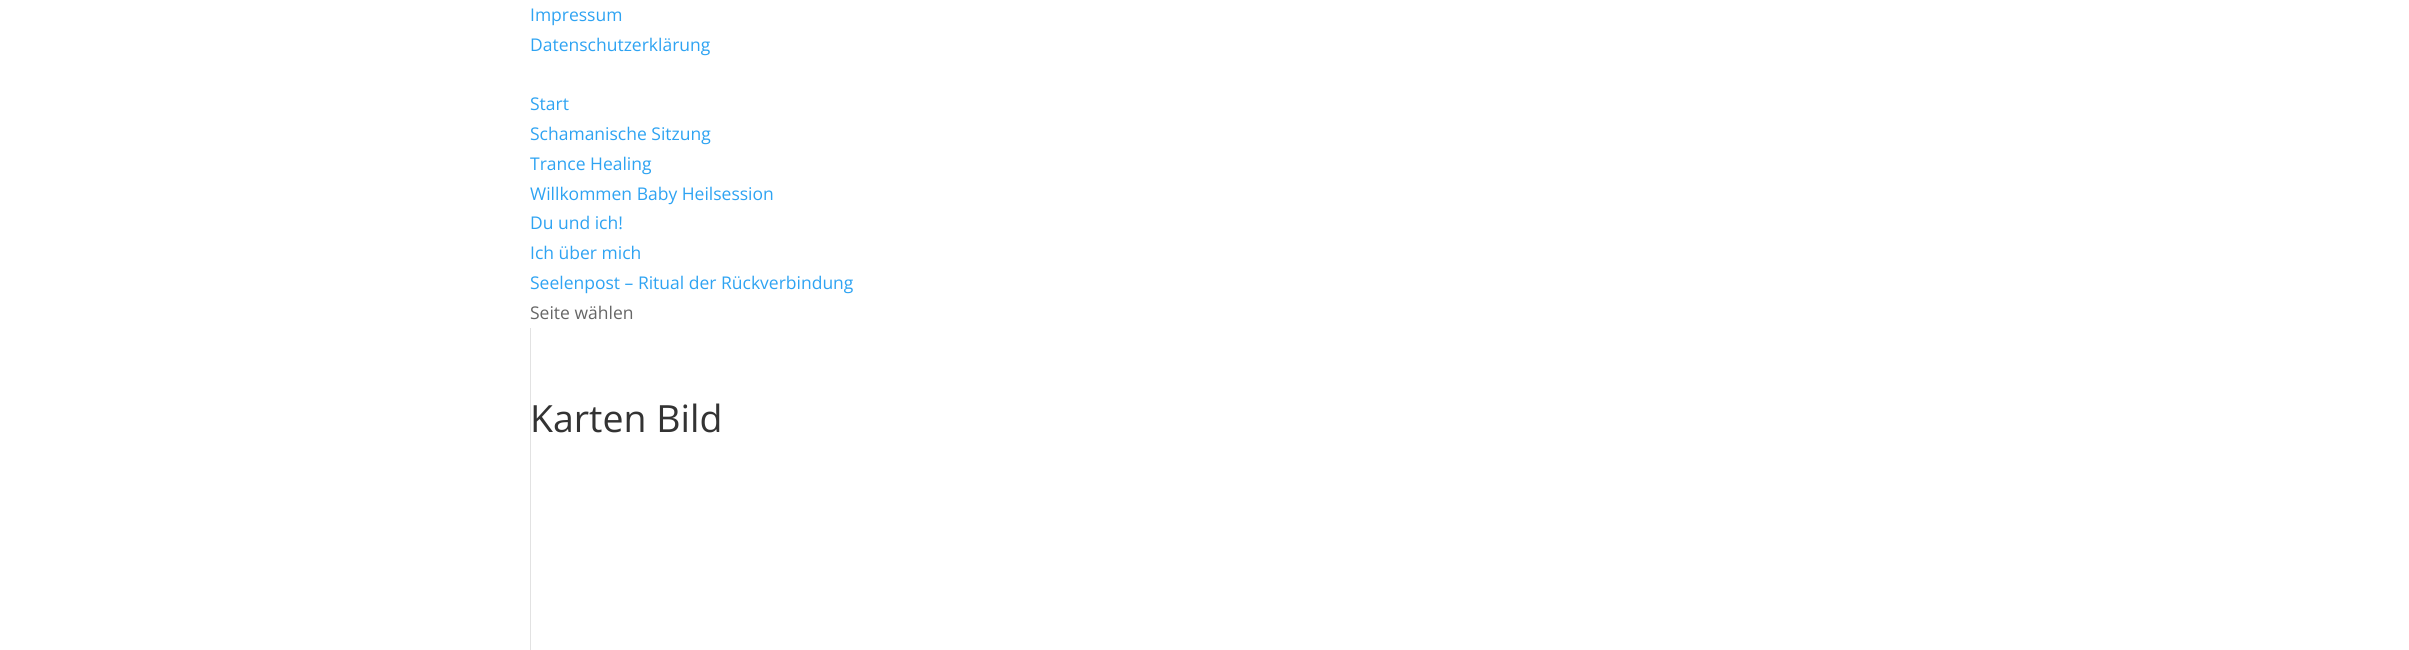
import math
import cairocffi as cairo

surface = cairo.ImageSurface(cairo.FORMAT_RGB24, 2409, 650)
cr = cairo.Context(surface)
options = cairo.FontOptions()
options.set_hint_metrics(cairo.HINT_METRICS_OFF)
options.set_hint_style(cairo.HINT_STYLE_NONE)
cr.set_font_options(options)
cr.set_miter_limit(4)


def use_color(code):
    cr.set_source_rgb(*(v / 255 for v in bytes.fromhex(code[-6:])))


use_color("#ffffff")
cr.paint()
cr.select_font_face("Open Sans")
cr.set_font_size(17.5)
use_color("#2ea3f2")
cr.move_to(530, 21)
cr.show_text("Impressum")
cr.move_to(530, 51)
cr.show_text("Datenschutzerklärung")
cr.move_to(530, 110)
cr.show_text("Start")
cr.move_to(530, 140)
cr.show_text("Schamanische Sitzung")
cr.move_to(530, 170)
cr.show_text("Trance Healing")
cr.move_to(530, 200)
cr.show_text("Willkommen Baby Heilsession")
cr.move_to(530, 229)
cr.show_text("Du und ich!")
cr.move_to(530, 259)
cr.show_text("Ich über mich")
cr.move_to(530, 289)
cr.show_text("Seelenpost – Ritual der Rückverbindung")
use_color("#666666")
cr.move_to(530, 319)
cr.show_text("Seite wählen")
use_color("#e2e2e2")
cr.rectangle(530, 328, 1, 322)
cr.fill()
cr.set_font_size(37.5)
use_color("#333333")
cr.move_to(530, 432)
cr.show_text("Karten Bild")
surface.write_to_png("result.png")
